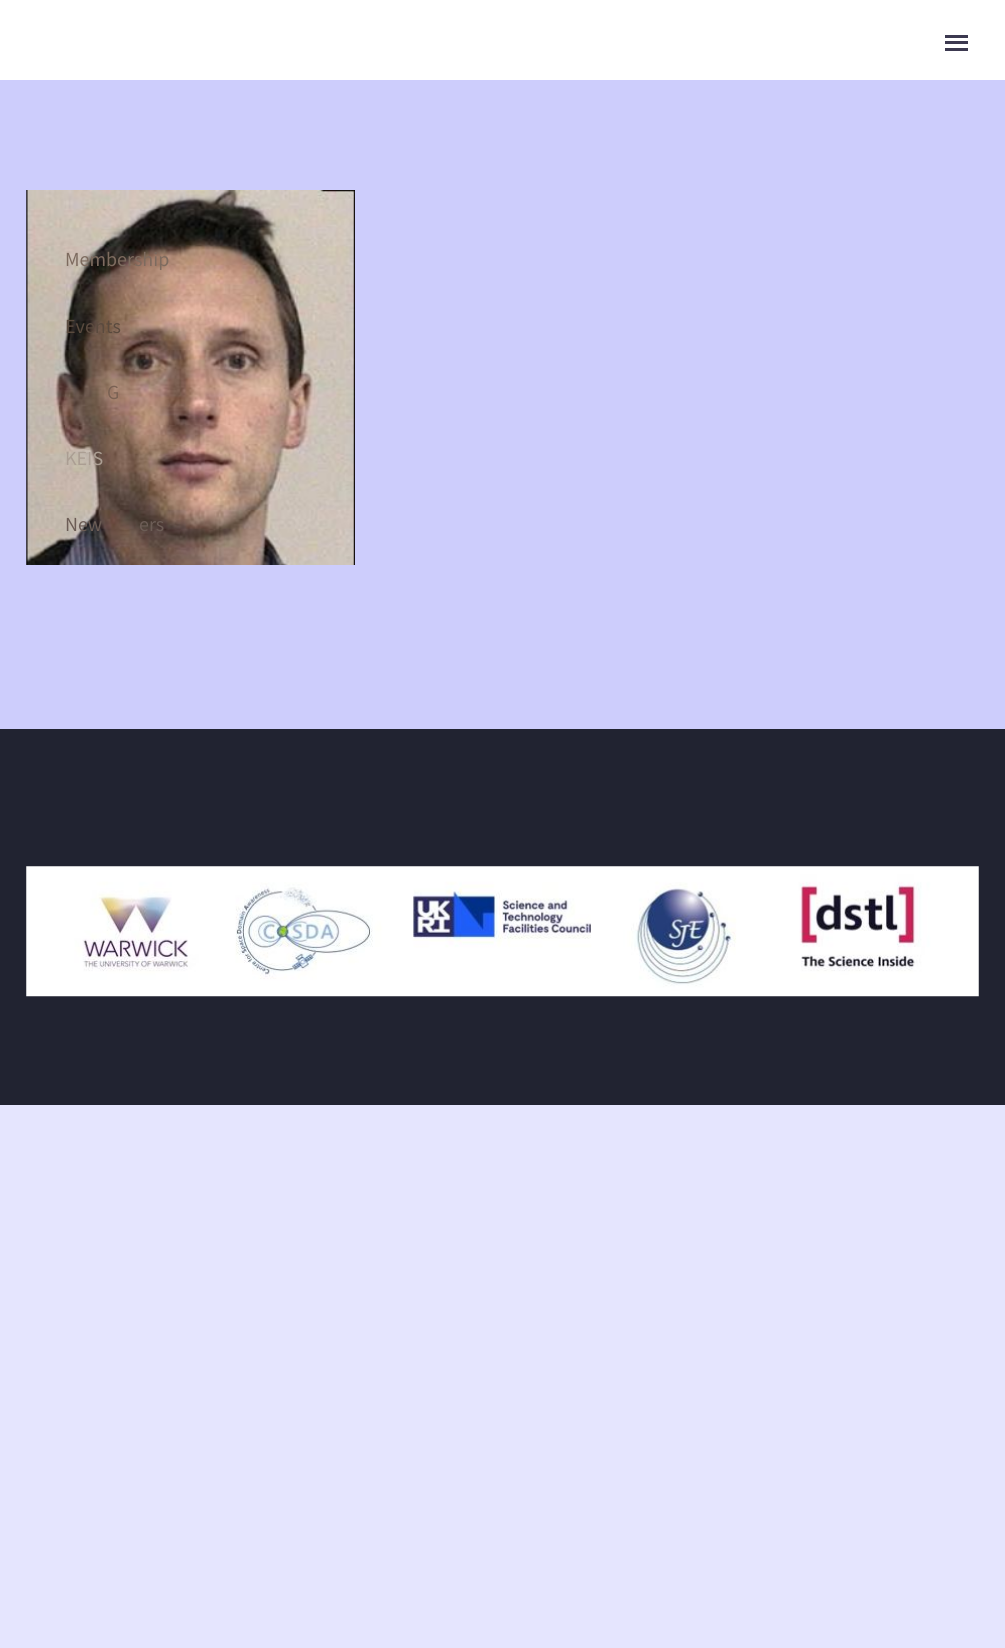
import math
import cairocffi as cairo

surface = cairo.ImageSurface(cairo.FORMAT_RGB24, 1005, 1648)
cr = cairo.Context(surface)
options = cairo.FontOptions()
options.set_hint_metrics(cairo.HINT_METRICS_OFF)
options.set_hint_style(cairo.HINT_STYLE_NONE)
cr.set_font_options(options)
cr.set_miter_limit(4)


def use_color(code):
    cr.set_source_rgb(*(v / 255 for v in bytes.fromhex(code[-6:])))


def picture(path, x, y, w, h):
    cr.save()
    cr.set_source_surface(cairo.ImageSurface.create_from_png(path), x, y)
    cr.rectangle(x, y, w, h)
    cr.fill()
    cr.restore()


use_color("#e5e5fe")
cr.paint()
use_color("#cdcdfc")
cr.rectangle(0, 80, 1005, 649)
cr.fill()
picture("img1.png", 26, 190, 329, 375)
use_color("#ffffff")
cr.rectangle(0, 0, 1005, 80)
cr.fill()
use_color("#3c3950")
cr.rectangle(945, 35, 23, 3)
cr.fill()
cr.rectangle(945, 41, 23, 3)
cr.fill()
cr.rectangle(945, 48, 23, 3)
cr.fill()
cr.select_font_face("Source Sans Pro")
cr.set_font_size(20)
use_color("#7d6b5f")
cr.move_to(65, 266)
cr.show_text("Membership")
use_color("#5a4a3e")
cr.move_to(65, 333)
cr.show_text("Events")
use_color("#7a6254")
cr.move_to(107, 399)
cr.show_text("G")
use_color("#ab9e93")
cr.move_to(65, 465)
cr.show_text("KEIS")
use_color("#6c5d56")
cr.move_to(65, 531)
cr.show_text("New")
cr.move_to(139, 531)
cr.show_text("ers")
use_color("#212331")
cr.rectangle(0, 729, 1005, 376)
cr.fill()
picture("img2.png", 26, 866, 953, 131)
surface.write_to_png("result.png")
